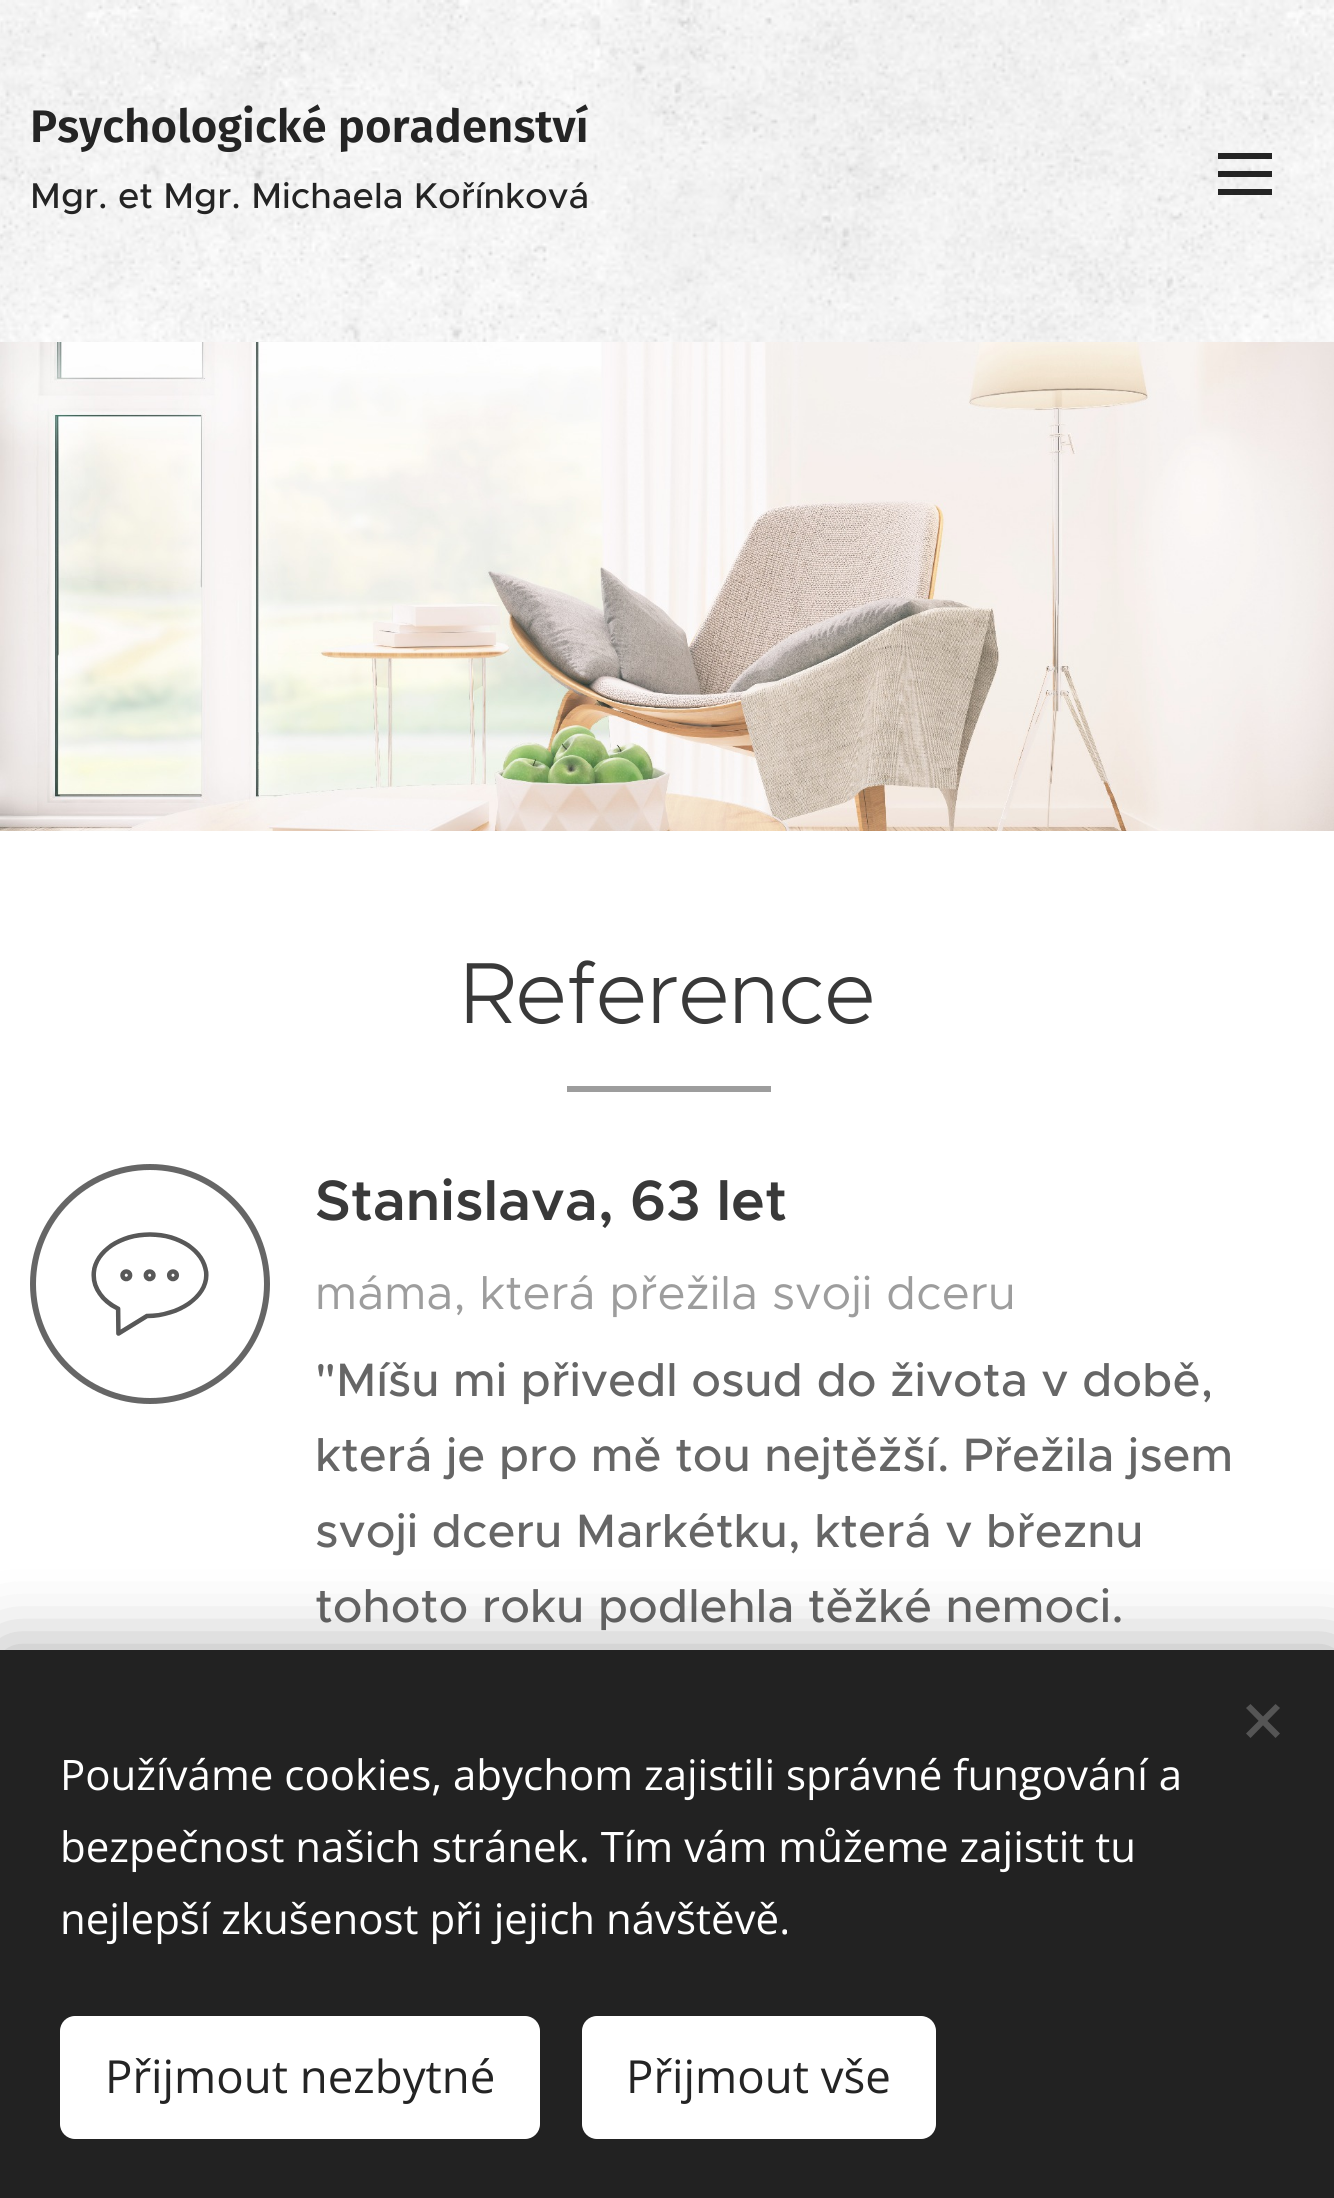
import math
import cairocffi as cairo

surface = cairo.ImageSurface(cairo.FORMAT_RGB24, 1334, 2198)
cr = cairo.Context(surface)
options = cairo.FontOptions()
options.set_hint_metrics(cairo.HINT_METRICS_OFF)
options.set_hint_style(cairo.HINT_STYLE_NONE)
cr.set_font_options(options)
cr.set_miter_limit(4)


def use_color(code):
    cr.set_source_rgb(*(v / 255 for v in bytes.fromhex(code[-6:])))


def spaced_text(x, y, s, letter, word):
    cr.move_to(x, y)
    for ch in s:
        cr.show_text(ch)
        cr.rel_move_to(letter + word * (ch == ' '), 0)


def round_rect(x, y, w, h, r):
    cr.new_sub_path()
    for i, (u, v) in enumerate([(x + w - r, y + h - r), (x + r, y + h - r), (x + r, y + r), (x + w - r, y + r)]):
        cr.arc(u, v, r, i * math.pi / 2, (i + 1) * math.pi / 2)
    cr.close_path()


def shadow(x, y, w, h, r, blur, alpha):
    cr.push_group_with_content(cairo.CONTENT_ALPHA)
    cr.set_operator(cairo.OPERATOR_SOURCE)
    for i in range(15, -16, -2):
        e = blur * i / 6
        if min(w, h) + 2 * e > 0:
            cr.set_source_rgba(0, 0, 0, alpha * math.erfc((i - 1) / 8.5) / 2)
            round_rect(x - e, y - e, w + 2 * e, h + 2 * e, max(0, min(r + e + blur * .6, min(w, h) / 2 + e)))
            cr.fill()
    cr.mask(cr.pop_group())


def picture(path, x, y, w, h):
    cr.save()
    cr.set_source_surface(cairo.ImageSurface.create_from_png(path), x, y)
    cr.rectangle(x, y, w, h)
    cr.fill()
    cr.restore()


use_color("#ffffff")
cr.paint()
picture("img1.png", 0, 0, 1334, 342)
cr.select_font_face("Fira Sans SemiBold")
cr.set_font_size(45.6)
use_color("#242424")
cr.move_to(30, 142)
cr.show_text("Psychologické poradenství")
cr.select_font_face("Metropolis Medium")
cr.set_font_size(36)
cr.move_to(30, 208)
cr.show_text("Mgr. et Mgr. Michaela Kořínková")
cr.set_source_rgba(0, 0, 0, 0.85)
cr.rectangle(1218, 171, 54, 6)
cr.fill()
cr.rectangle(1218, 153, 54, 6)
cr.fill()
cr.rectangle(1218, 189, 54, 6)
cr.fill()
picture("img2.png", 0, 342, 1334, 489)
cr.select_font_face("Metropolis Light")
cr.set_font_size(87)
use_color("#393939")
spaced_text(460, 1023, "Reference", -0.9, 0)
use_color("#9d9d9d")
cr.rectangle(567, 1086, 204, 6)
cr.fill()
cr.arc(150, 1284, 117, 0, 2 * math.pi)
use_color("#666666")
cr.set_line_width(6)
cr.stroke()
picture("img3.png", 91, 1232, 118, 104)
cr.select_font_face("Metropolis SemiBold")
cr.set_font_size(57)
use_color("#393939")
cr.move_to(315, 1220)
cr.show_text("Stanislava, 63 let")
cr.select_font_face("Metropolis")
cr.set_font_size(47.1)
use_color("#9d9d9d")
cr.move_to(315, 1309)
cr.show_text("máma, která přežila svoji dceru")
cr.select_font_face("Metropolis Medium")
use_color("#666666")
cr.move_to(315, 1396)
cr.show_text("\"Míšu mi přivedl osud do života v době,")
cr.move_to(315, 1471)
cr.show_text("která je pro mě tou nejtěžší. Přežila jsem")
cr.move_to(315, 1547)
cr.show_text("svoji dceru Markétku, která v březnu")
cr.move_to(315, 1622)
cr.show_text("tohoto roku podlehla těžké nemoci.")
use_color("#000000")
shadow(0, 1650, 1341, 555, 0, 37.5, 0.33)
use_color("#222222")
cr.rectangle(0, 1650, 1334, 548)
cr.fill()
use_color("#555555")
cr.new_path()
cr.move_to(1246, 1733.5)
cr.line_to(1275.5, 1704)
cr.line_to(1280, 1708)
cr.line_to(1250.5, 1738)
cr.close_path()
cr.fill()
cr.new_path()
cr.move_to(1250.5, 1704)
cr.line_to(1280, 1733.5)
cr.line_to(1275.5, 1738)
cr.line_to(1246, 1708)
cr.close_path()
cr.fill()
cr.select_font_face("Open Sans")
cr.set_font_size(42)
use_color("#ffffff")
cr.move_to(60, 1790)
cr.show_text("Používáme cookies, abychom zajistili správné fungování a")
cr.move_to(60, 1862)
cr.show_text("bezpečnost našich stránek. Tím vám můžeme zajistit tu")
cr.move_to(60, 1934)
cr.show_text("nejlepší zkušenost při jejich návštěvě.")
round_rect(60, 2016, 480, 123, 15)
cr.fill()
cr.set_font_size(45.6)
use_color("#242424")
cr.move_to(105, 2093)
cr.show_text("Přijmout nezbytné")
use_color("#ffffff")
round_rect(582, 2016, 354, 123, 15)
cr.fill()
use_color("#242424")
cr.move_to(626, 2093)
cr.show_text("Přijmout vše")
surface.write_to_png("result.png")
